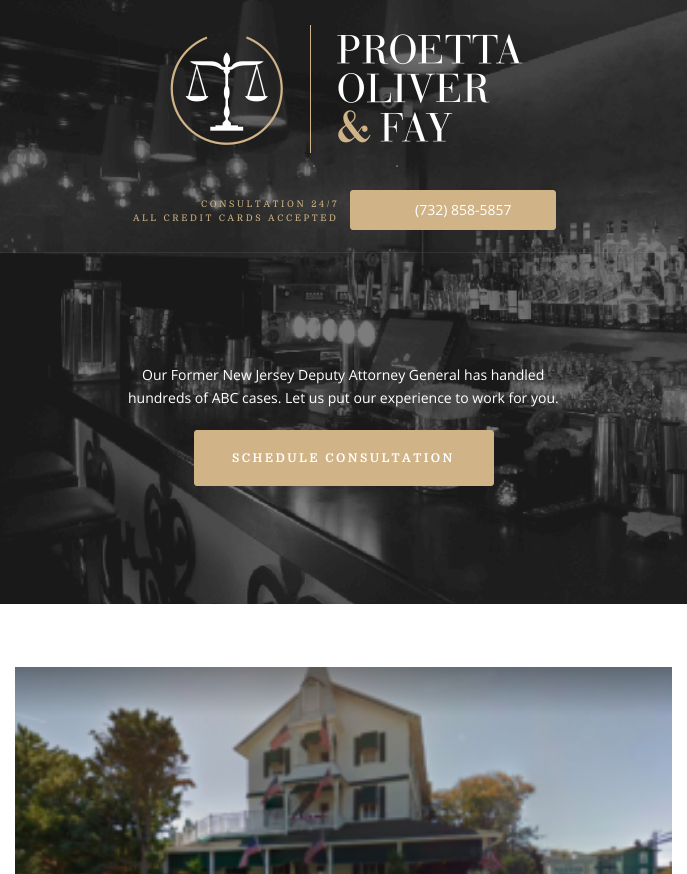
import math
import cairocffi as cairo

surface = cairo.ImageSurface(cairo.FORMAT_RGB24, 687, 874)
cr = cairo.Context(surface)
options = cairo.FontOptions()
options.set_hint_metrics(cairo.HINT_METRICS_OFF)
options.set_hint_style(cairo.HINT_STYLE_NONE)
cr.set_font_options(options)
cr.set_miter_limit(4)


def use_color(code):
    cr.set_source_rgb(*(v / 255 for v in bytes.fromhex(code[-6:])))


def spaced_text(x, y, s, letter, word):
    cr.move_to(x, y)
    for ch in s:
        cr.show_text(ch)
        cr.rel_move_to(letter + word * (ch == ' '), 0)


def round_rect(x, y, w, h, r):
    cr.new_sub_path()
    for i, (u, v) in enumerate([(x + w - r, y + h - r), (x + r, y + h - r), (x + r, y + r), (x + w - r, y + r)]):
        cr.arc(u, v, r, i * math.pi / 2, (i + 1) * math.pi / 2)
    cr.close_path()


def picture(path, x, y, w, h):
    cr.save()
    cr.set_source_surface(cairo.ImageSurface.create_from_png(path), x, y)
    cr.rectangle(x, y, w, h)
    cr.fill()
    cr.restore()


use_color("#ffffff")
cr.paint()
picture("img1.png", 0, 0, 687, 604)
cr.set_source_rgba(0.769, 0.769, 0.769, 0.1)
cr.rectangle(0, 252, 687, 1)
cr.fill()
picture("img2.png", 170, 25, 353, 128)
use_color("#6c7579")
cr.arc(314, 166, 1, 0, 2 * math.pi)
cr.fill()
cr.arc(397, 166, 1, 0, 2 * math.pi)
cr.fill()
cr.select_font_face("Domine")
cr.set_font_size(9)
use_color("#d0b483")
spaced_text(201, 207, "CONSULTATION 24/7", 2.6, 0)
spaced_text(133, 221, "ALL CREDIT CARDS ACCEPTED", 2.6, 0)
use_color("#d0b387")
round_rect(350, 190, 206, 40, 3)
cr.fill()
cr.select_font_face("Open Sans")
cr.set_font_size(14)
use_color("#ffffff")
cr.move_to(415, 215)
cr.show_text("(732) 858-5857")
cr.move_to(142, 380)
cr.show_text("Our Former New Jersey Deputy Attorney General has handled")
cr.move_to(128, 403)
cr.show_text("hundreds of ABC cases. Let us put our experience to work for you.")
use_color("#d0b387")
round_rect(194, 430, 300, 56, 3)
cr.fill()
cr.select_font_face("Domine", cairo.FONT_SLANT_NORMAL, cairo.FONT_WEIGHT_BOLD)
cr.set_font_size(12)
use_color("#ffffff")
spaced_text(232, 462, "SCHEDULE CONSULTATION", 2.4, 0)
picture("img3.png", 15, 667, 657, 207)
surface.write_to_png("result.png")
